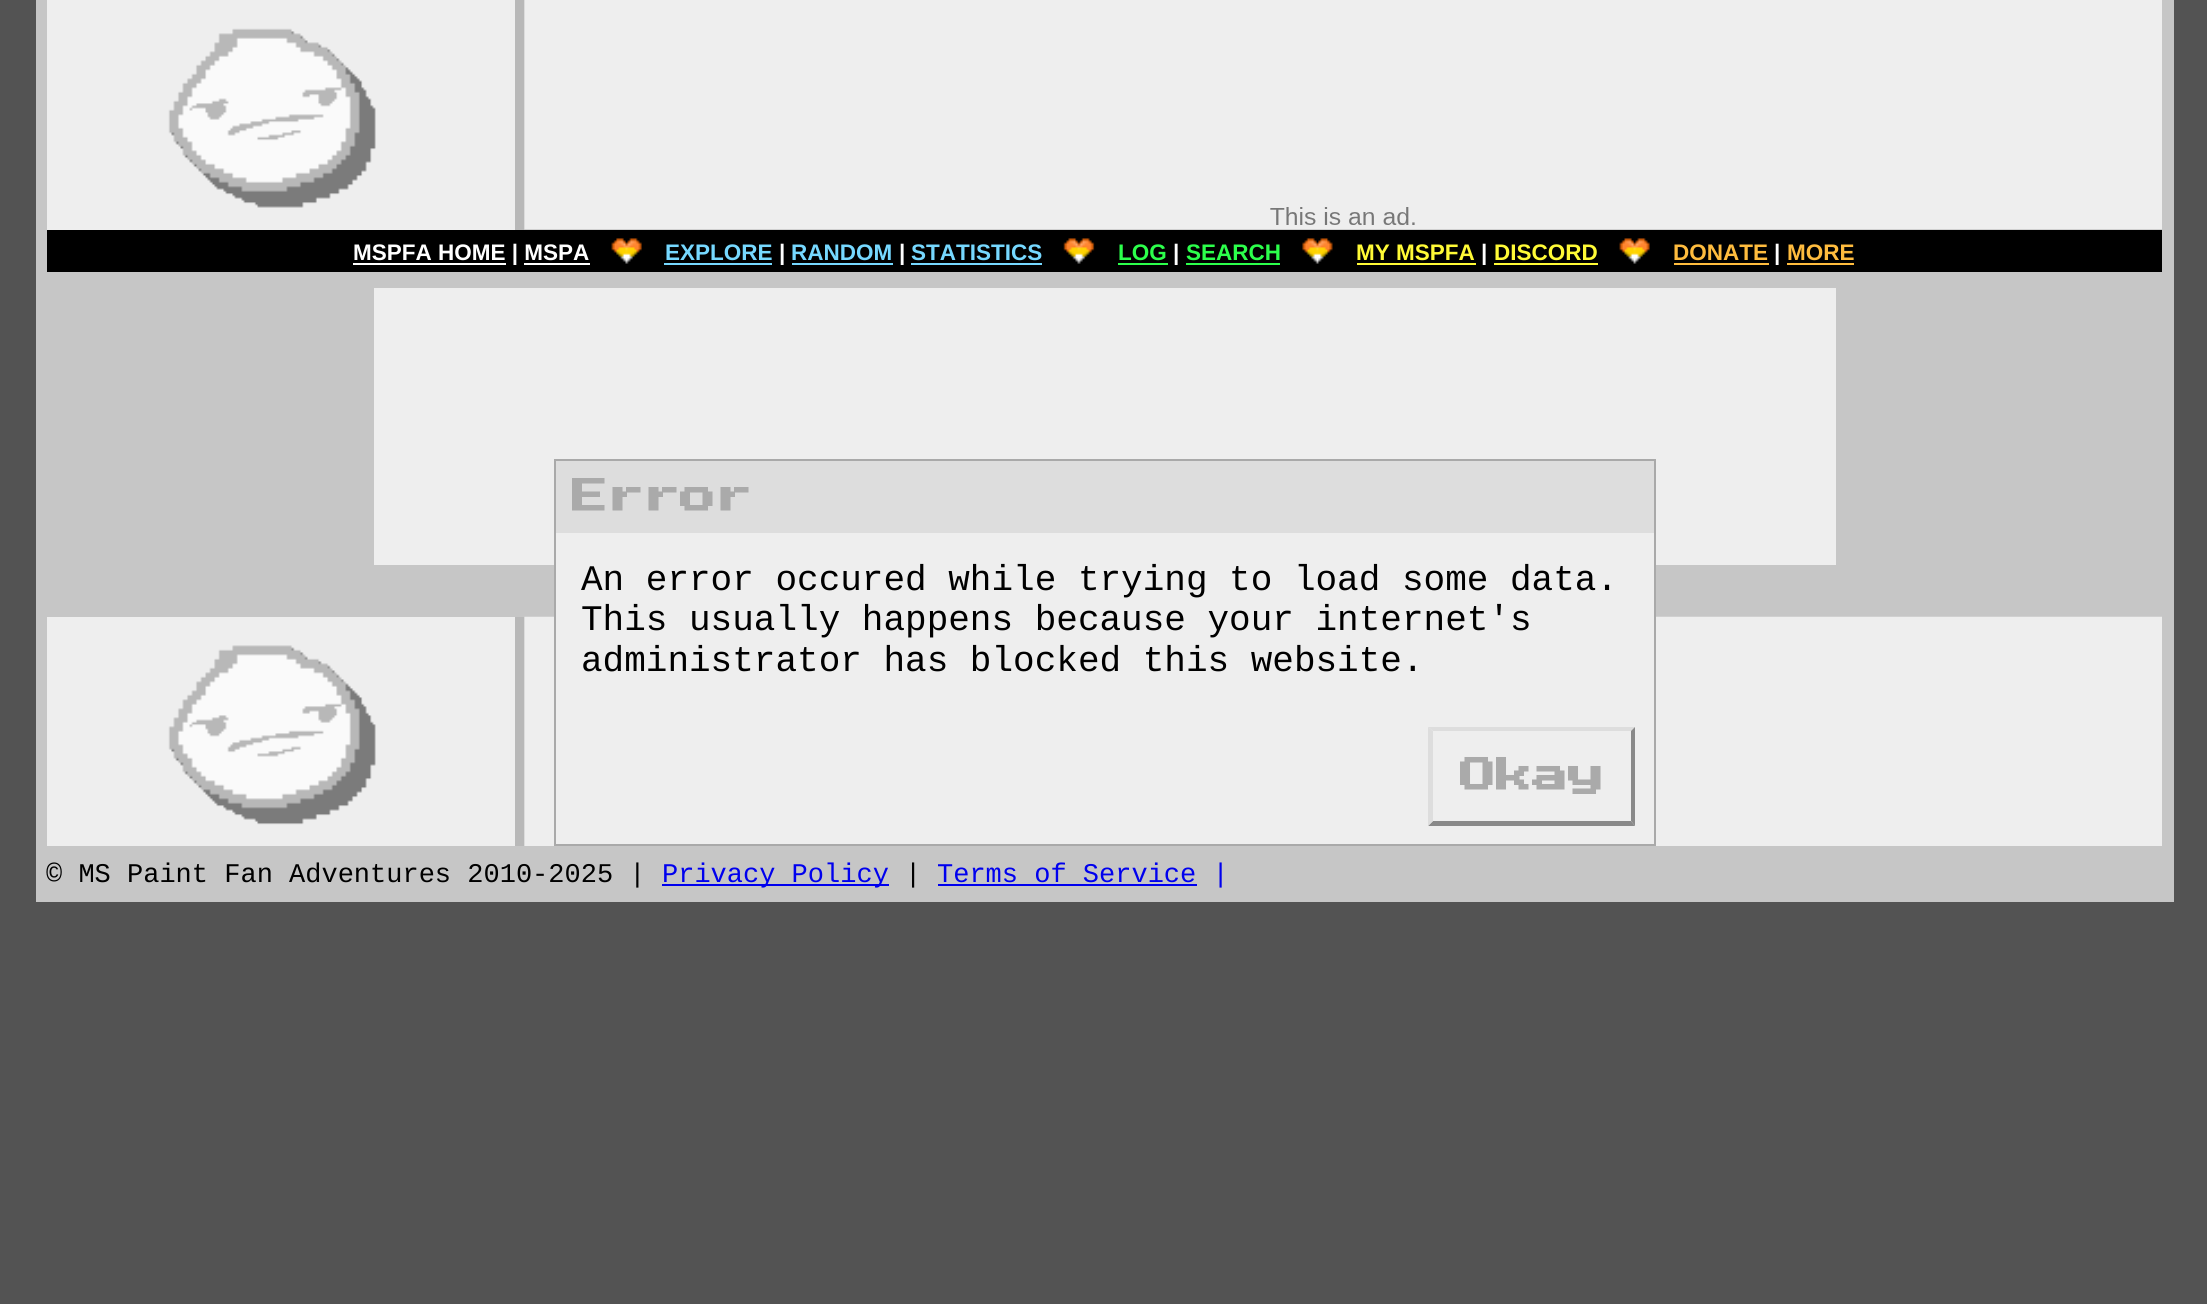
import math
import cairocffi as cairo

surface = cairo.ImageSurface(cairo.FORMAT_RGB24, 2207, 1304)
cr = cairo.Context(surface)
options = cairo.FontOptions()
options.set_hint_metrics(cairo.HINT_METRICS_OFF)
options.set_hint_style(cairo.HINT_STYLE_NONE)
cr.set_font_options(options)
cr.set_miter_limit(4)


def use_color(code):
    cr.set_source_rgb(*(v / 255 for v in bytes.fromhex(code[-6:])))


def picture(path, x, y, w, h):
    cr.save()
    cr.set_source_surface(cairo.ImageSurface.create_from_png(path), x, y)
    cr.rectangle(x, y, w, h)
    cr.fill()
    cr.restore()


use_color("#535353")
cr.paint()
use_color("#c6c6c6")
cr.rectangle(36, 0, 2138, 902)
cr.fill()
use_color("#eeeeee")
cr.rectangle(47, 0, 468, 230)
cr.fill()
picture("img1.png", 168, 28, 208, 180)
use_color("#b8b8b8")
cr.rectangle(515, 0, 9, 230)
cr.fill()
picture("img2.png", 524, 0, 1638, 230)
use_color("#000000")
cr.rectangle(47, 230, 2115, 42)
cr.fill()
use_color("#ffffff")
cr.rectangle(353, 263, 153, 2)
cr.fill()
cr.select_font_face("Liberation Sans", cairo.FONT_SLANT_NORMAL, cairo.FONT_WEIGHT_BOLD)
cr.set_font_size(22.5)
cr.move_to(353, 260)
cr.show_text("MSPFA HOME | MSPA")
picture("img3.png", 611, 238, 31, 26)
use_color("#76d8ff")
cr.move_to(665, 260)
cr.show_text("EXPLORE")
cr.rectangle(664, 263, 108, 2)
cr.fill()
use_color("#ffffff")
cr.move_to(779, 260)
cr.show_text("|")
use_color("#76d8ff")
cr.move_to(791, 260)
cr.show_text("RANDOM")
cr.rectangle(792, 263, 101, 2)
cr.fill()
use_color("#ffffff")
cr.move_to(899, 260)
cr.show_text("|")
use_color("#76d8ff")
cr.move_to(911, 260)
cr.show_text("STATISTICS")
cr.rectangle(911, 263, 131, 2)
cr.fill()
picture("img4.png", 1063, 238, 32, 26)
use_color("#2cff4b")
cr.move_to(1118, 260)
cr.show_text("LOG")
cr.rectangle(1118, 263, 50, 2)
cr.fill()
use_color("#ffffff")
cr.move_to(1173, 260)
cr.show_text("|")
use_color("#2cff4b")
cr.move_to(1186, 260)
cr.show_text("SEARCH")
cr.rectangle(1186, 263, 94, 2)
cr.fill()
picture("img5.png", 1302, 238, 31, 26)
use_color("#fffa36")
cr.move_to(1356, 260)
cr.show_text("MY MSPFA")
cr.rectangle(1357, 263, 119, 2)
cr.fill()
use_color("#ffffff")
cr.move_to(1481, 260)
cr.show_text("|")
use_color("#fffa36")
cr.move_to(1494, 260)
cr.show_text("DISCORD")
cr.rectangle(1494, 263, 104, 2)
cr.fill()
picture("img6.png", 1619, 238, 31, 26)
use_color("#ffbc3e")
cr.move_to(1673, 260)
cr.show_text("DONATE")
cr.rectangle(1674, 263, 95, 2)
cr.fill()
use_color("#ffffff")
cr.move_to(1774, 260)
cr.show_text("|")
use_color("#ffbc3e")
cr.move_to(1787, 260)
cr.show_text("MORE")
cr.rectangle(1787, 263, 67, 2)
cr.fill()
use_color("#ffffff")
cr.rectangle(524, 263, 66, 2)
cr.fill()
use_color("#eeeeee")
cr.rectangle(374, 288, 1462, 277)
cr.fill()
cr.rectangle(47, 617, 468, 229)
cr.fill()
picture("img7.png", 168, 645, 208, 180)
use_color("#b8b8b8")
cr.rectangle(515, 617, 9, 229)
cr.fill()
picture("img8.png", 524, 616, 1638, 230)
cr.select_font_face("Liberation Mono")
cr.set_font_size(27)
use_color("#000000")
cr.move_to(46, 882)
cr.show_text("© MS Paint Fan Adventures 2010-2025 |")
use_color("#0000ee")
cr.rectangle(662, 884, 227, 2)
cr.fill()
cr.move_to(662, 882)
cr.show_text("Privacy Policy")
use_color("#000000")
cr.move_to(905, 882)
cr.show_text("|")
use_color("#0000ee")
cr.rectangle(938, 884, 259, 2)
cr.fill()
cr.move_to(937, 882)
cr.show_text("Terms of Service |")
use_color("#eeeeee")
cr.rectangle(556, 565, 1098, 277)
cr.fill()
cr.rectangle(555, 460, 1100, 385)
use_color("#a9a9a9")
cr.stroke()
use_color("#dddddd")
cr.rectangle(556, 461, 1098, 72)
cr.fill()
cr.select_font_face("Press Start 2P", cairo.FONT_SLANT_NORMAL, cairo.FONT_WEIGHT_BOLD)
cr.set_font_size(36)
use_color("#aaaaaa")
cr.move_to(572, 515)
cr.show_text("Error")
cr.select_font_face("Liberation Mono")
use_color("#000000")
cr.move_to(581, 590)
cr.show_text("An error occured while trying to load some data.")
cr.move_to(581, 630)
cr.show_text("This usually happens because your internet's")
cr.move_to(581, 671)
cr.show_text("administrator has blocked this website.")
use_color("#dddddd")
cr.new_path()
cr.move_to(1428, 727)
cr.line_to(1635, 727)
cr.line_to(1631, 731)
cr.line_to(1433, 731)
cr.close_path()
cr.fill()
use_color("#898989")
cr.new_path()
cr.move_to(1635, 727)
cr.line_to(1635, 826)
cr.line_to(1631, 821)
cr.line_to(1631, 731)
cr.close_path()
cr.fill()
cr.new_path()
cr.move_to(1635, 826)
cr.line_to(1428, 826)
cr.line_to(1433, 821)
cr.line_to(1631, 821)
cr.close_path()
cr.fill()
use_color("#dddddd")
cr.new_path()
cr.move_to(1428, 826)
cr.line_to(1428, 727)
cr.line_to(1433, 731)
cr.line_to(1433, 821)
cr.close_path()
cr.fill()
cr.select_font_face("Press Start 2P", cairo.FONT_SLANT_NORMAL, cairo.FONT_WEIGHT_BOLD)
use_color("#aaaaaa")
cr.move_to(1460, 794)
cr.show_text("Okay")
surface.write_to_png("result.png")
